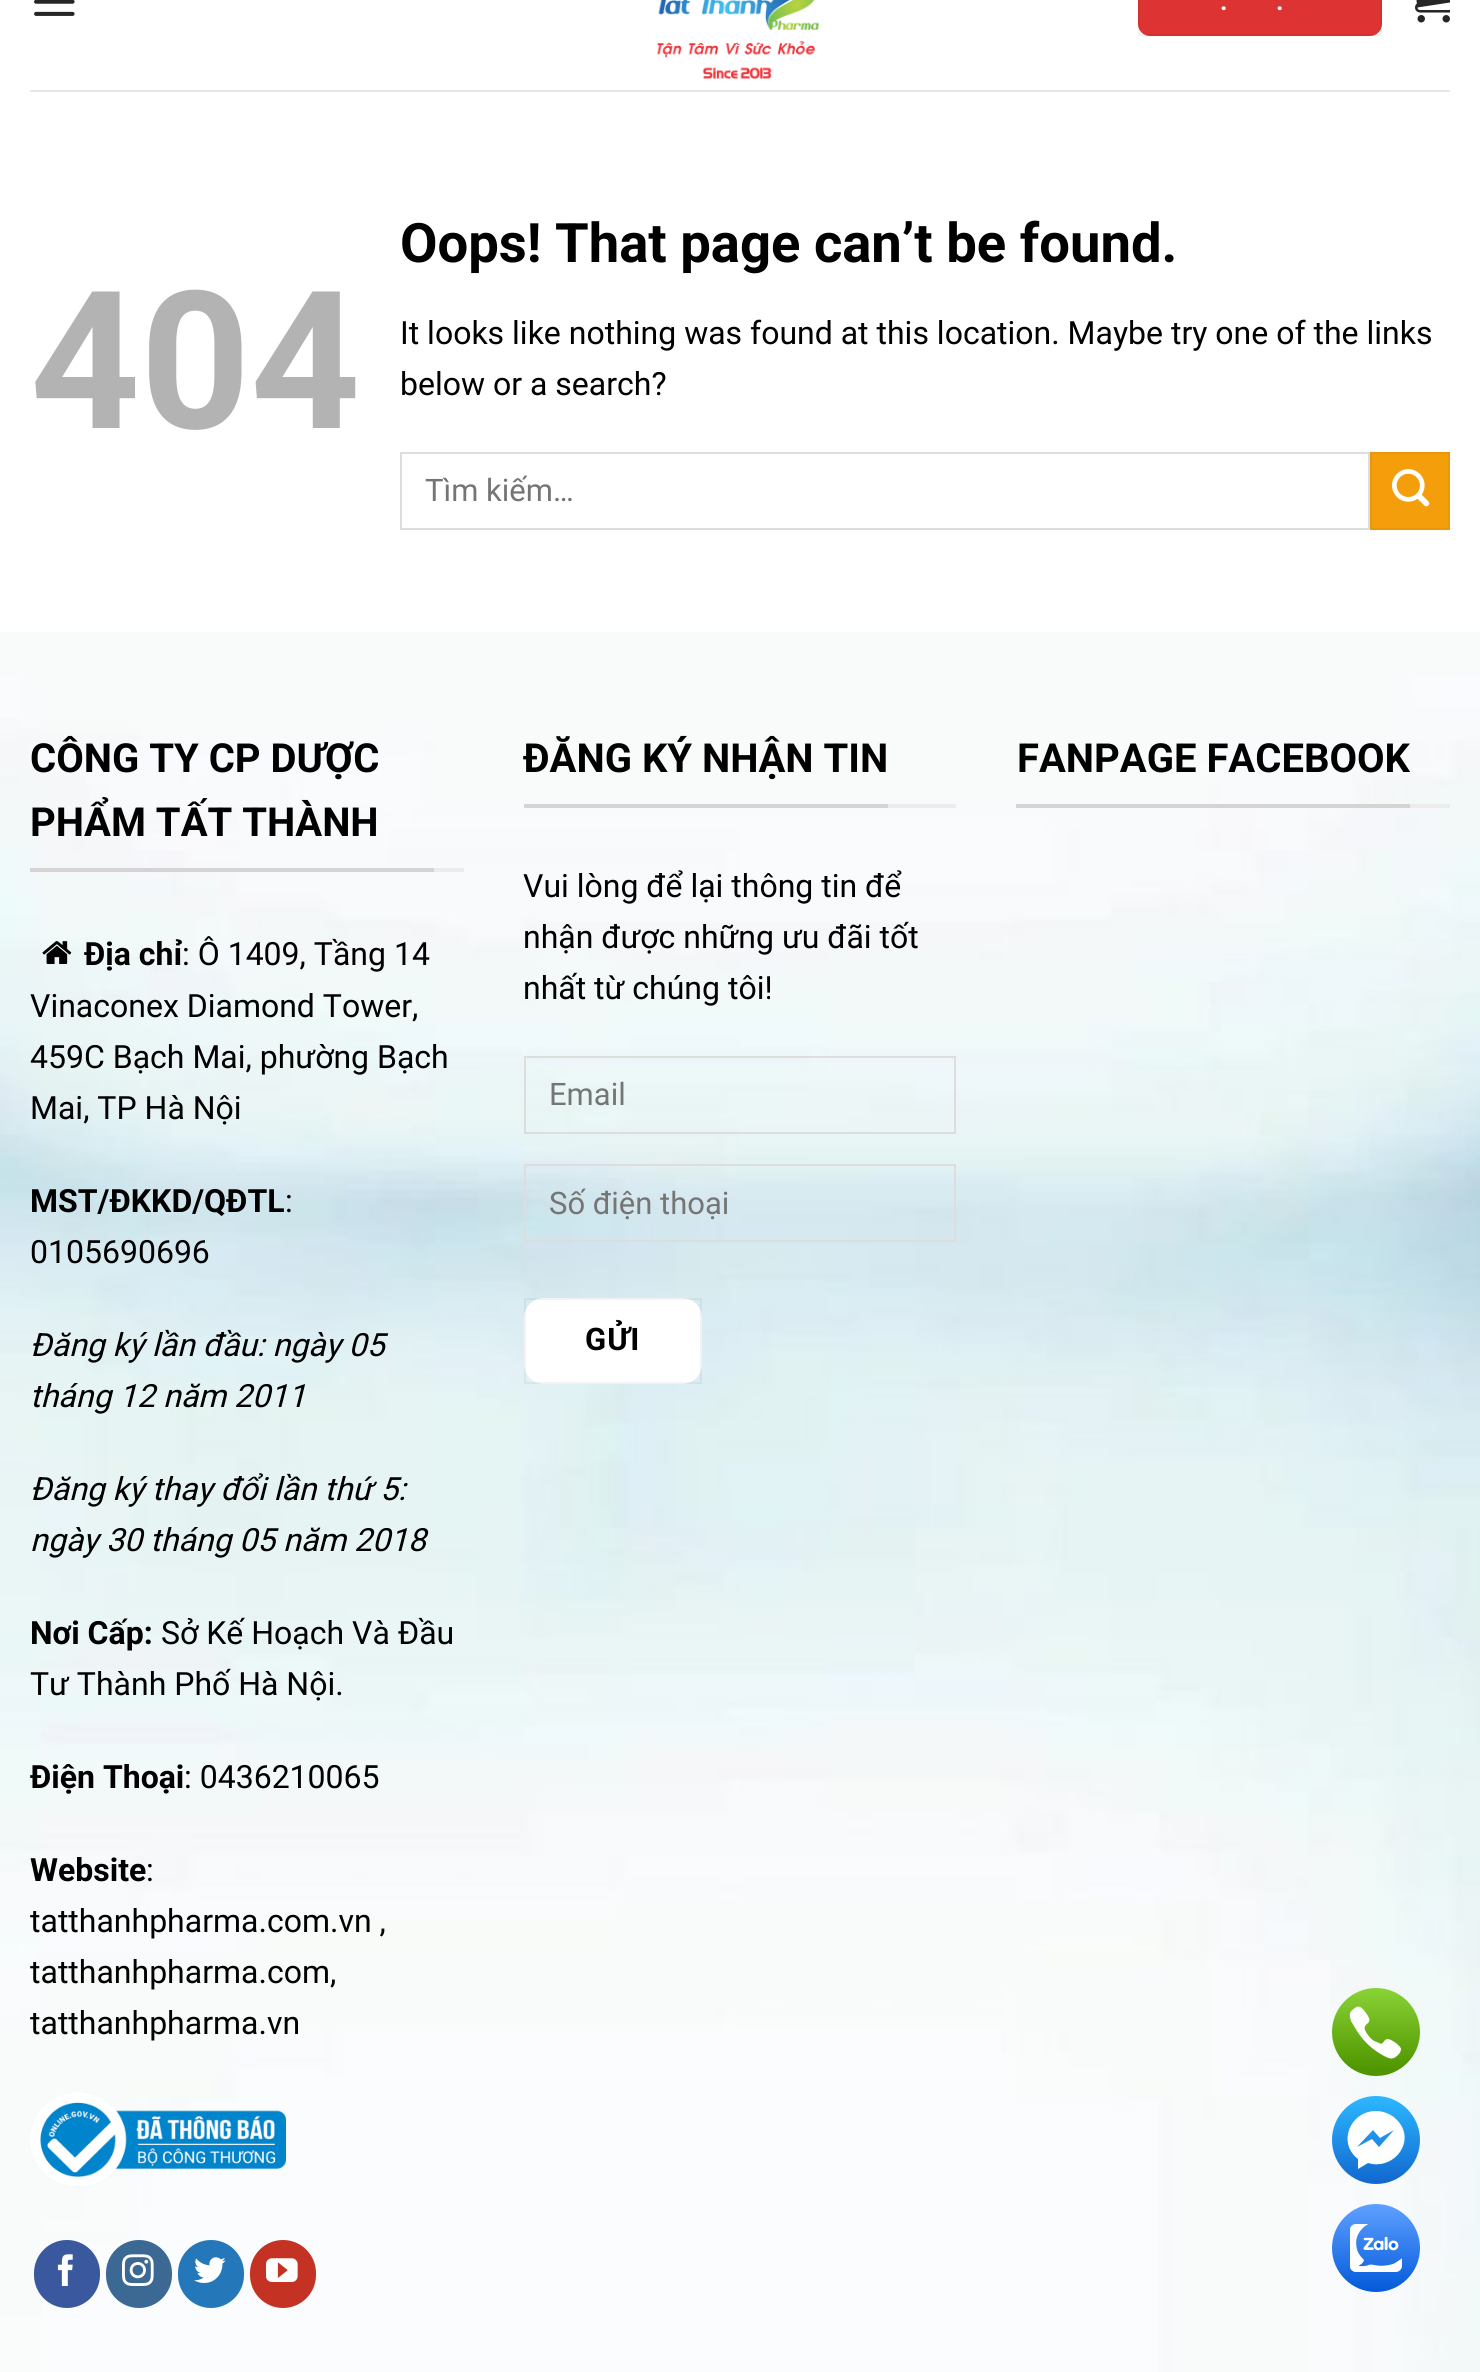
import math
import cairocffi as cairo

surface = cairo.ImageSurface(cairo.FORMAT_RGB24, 1480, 2372)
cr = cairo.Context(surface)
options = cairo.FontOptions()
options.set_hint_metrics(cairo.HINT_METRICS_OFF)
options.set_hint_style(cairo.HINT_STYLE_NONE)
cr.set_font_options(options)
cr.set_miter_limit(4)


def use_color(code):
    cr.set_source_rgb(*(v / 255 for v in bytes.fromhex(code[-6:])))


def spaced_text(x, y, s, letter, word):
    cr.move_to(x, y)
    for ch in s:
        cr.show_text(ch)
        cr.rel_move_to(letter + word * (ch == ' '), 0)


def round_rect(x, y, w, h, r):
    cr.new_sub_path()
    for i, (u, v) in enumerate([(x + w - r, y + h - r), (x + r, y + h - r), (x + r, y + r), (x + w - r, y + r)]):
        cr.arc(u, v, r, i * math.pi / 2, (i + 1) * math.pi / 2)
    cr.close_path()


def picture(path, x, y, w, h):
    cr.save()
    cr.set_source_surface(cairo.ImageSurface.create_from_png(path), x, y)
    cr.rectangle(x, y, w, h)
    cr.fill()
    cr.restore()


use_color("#ffffff")
cr.paint()
picture("img1.png", 34, 0, 41, 16)
picture("img2.png", 656, 0, 163, 79)
use_color("#dd3333")
round_rect(1138, -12, 244, 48, 12)
cr.fill()
cr.rectangle(1139, -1, 242, 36)
cr.set_source_rgba(0, 0, 0, 0.05)
cr.stroke()
cr.select_font_face("Roboto", cairo.FONT_SLANT_NORMAL, cairo.FONT_WEIGHT_BOLD)
cr.set_font_size(26)
use_color("#ffffff")
spaced_text(1220, 10, ".", 1, 0)
spaced_text(1276, 10, ".", 1, 0)
picture("img3.png", 1415, 0, 35, 23)
use_color("#e6e6e6")
cr.rectangle(30, 90, 1420, 2)
cr.fill()
cr.set_font_size(192)
use_color("#b3b3b3")
cr.move_to(30, 428)
cr.show_text("404")
cr.set_font_size(54.4)
use_color("#000000")
cr.move_to(400, 262)
cr.show_text("Oops! That page can’t be found.")
cr.select_font_face("Roboto")
cr.set_font_size(32)
cr.move_to(400, 344)
cr.show_text("It looks like nothing was found at this location. Maybe try one of the links")
cr.move_to(400, 395)
cr.show_text("below or a search?")
cr.rectangle(401, 453, 968, 76)
use_color("#dddddd")
cr.stroke()
cr.set_font_size(31)
use_color("#757575")
cr.move_to(425, 501)
cr.show_text("Tìm kiếm…")
use_color("#f59e0b")
cr.rectangle(1371, 453, 78, 76)
cr.fill_preserve()
use_color("#e9960a")
cr.stroke()
picture("img4.png", 1392, 469, 38, 38)
picture("img5.png", 0, 632, 1480, 1740)
use_color("#ececec")
cr.rectangle(434, 868, 30, 4)
cr.fill()
use_color("#d4d4d4")
cr.rectangle(30, 868, 404, 4)
cr.fill()
cr.select_font_face("Roboto", cairo.FONT_SLANT_NORMAL, cairo.FONT_WEIGHT_BOLD)
cr.set_font_size(40)
use_color("#000000")
cr.move_to(30, 772)
cr.show_text("CÔNG TY CP DƯỢC")
cr.move_to(30, 836)
cr.show_text("PHẨM TẤT THÀNH")
picture("img6.png", 42, 941, 30, 23)
cr.set_font_size(32)
cr.move_to(84, 965)
cr.show_text("Địa chỉ")
cr.select_font_face("Roboto")
cr.move_to(182, 965)
cr.show_text(": Ô 1409, Tầng 14")
cr.move_to(30, 1017)
cr.show_text("Vinaconex Diamond Tower,")
cr.move_to(30, 1068)
cr.show_text("459C Bạch Mai, phường Bạch")
cr.move_to(30, 1119)
cr.show_text("Mai, TP Hà Nội")
cr.select_font_face("Roboto", cairo.FONT_SLANT_NORMAL, cairo.FONT_WEIGHT_BOLD)
cr.move_to(30, 1212)
cr.show_text("MST/ĐKKD/QĐTL")
cr.select_font_face("Roboto")
cr.move_to(285, 1212)
cr.show_text(":")
cr.move_to(30, 1263)
cr.show_text("0105690696")
cr.select_font_face("Roboto", cairo.FONT_SLANT_ITALIC)
cr.move_to(30, 1356)
cr.show_text("Đăng ký lần đầu: ngày 05")
cr.move_to(30, 1407)
cr.show_text("tháng 12 năm 2011")
cr.move_to(30, 1500)
cr.show_text("Đăng ký thay đổi lần thứ 5:")
cr.move_to(30, 1551)
cr.show_text("ngày 30 tháng 05 năm 2018")
cr.select_font_face("Roboto", cairo.FONT_SLANT_NORMAL, cairo.FONT_WEIGHT_BOLD)
cr.move_to(30, 1644)
cr.show_text("Nơi Cấp:")
cr.select_font_face("Roboto")
cr.move_to(161, 1644)
cr.show_text("Sở Kế Hoạch Và Đầu")
cr.move_to(30, 1695)
cr.show_text("Tư Thành Phố Hà Nội.")
cr.select_font_face("Roboto", cairo.FONT_SLANT_NORMAL, cairo.FONT_WEIGHT_BOLD)
cr.move_to(30, 1788)
cr.show_text("Điện Thoại")
cr.select_font_face("Roboto")
cr.move_to(184, 1788)
cr.show_text(": 0436210065")
cr.select_font_face("Roboto", cairo.FONT_SLANT_NORMAL, cairo.FONT_WEIGHT_BOLD)
cr.move_to(30, 1881)
cr.show_text("Website")
cr.select_font_face("Roboto")
cr.move_to(146, 1881)
cr.show_text(":")
cr.move_to(30, 1932)
cr.show_text("tatthanhpharma.com.vn ,")
cr.move_to(30, 1983)
cr.show_text("tatthanhpharma.com,")
cr.move_to(30, 2034)
cr.show_text("tatthanhpharma.vn")
picture("img7.png", 30, 2092, 256, 95)
use_color("#3a589d")
round_rect(35, 2241, 64, 66, 32)
cr.fill_preserve()
cr.stroke()
picture("img8.png", 57, 2254, 16, 32)
use_color("#3b6994")
round_rect(107, 2241, 64, 66, 32)
cr.fill_preserve()
cr.stroke()
picture("img9.png", 122, 2254, 32, 32)
use_color("#2478ba")
round_rect(179, 2241, 64, 66, 32)
cr.fill_preserve()
cr.stroke()
picture("img10.png", 194, 2257, 32, 26)
use_color("#c33223")
round_rect(251, 2241, 64, 66, 32)
cr.fill_preserve()
cr.stroke()
picture("img11.png", 266, 2258, 32, 24)
use_color("#ececec")
cr.rectangle(888, 804, 68, 4)
cr.fill()
use_color("#d4d4d4")
cr.rectangle(524, 804, 364, 4)
cr.fill()
cr.select_font_face("Roboto", cairo.FONT_SLANT_NORMAL, cairo.FONT_WEIGHT_BOLD)
cr.set_font_size(40)
use_color("#000000")
cr.move_to(523, 772)
cr.show_text("ĐĂNG KÝ NHẬN TIN")
cr.select_font_face("Roboto")
cr.set_font_size(32)
cr.move_to(523, 897)
cr.show_text("Vui lòng để lại thông tin để")
cr.move_to(523, 948)
cr.show_text("nhận được những ưu đãi tốt")
cr.move_to(523, 999)
cr.show_text("nhất từ chúng tôi!")
cr.rectangle(525, 1057, 430, 76)
use_color("#dddddd")
cr.stroke()
cr.set_font_size(31)
use_color("#757575")
cr.move_to(549, 1105)
cr.show_text("Email")
cr.rectangle(525, 1165, 430, 76)
use_color("#dddddd")
cr.stroke()
use_color("#757575")
cr.move_to(549, 1214)
cr.show_text("Số điện thoại")
use_color("#ffffff")
round_rect(524, 1298, 178, 86, 20)
cr.fill()
cr.rectangle(525, 1299, 176, 84)
cr.set_source_rgba(0, 0, 0, 0.05)
cr.stroke()
cr.select_font_face("Roboto", cairo.FONT_SLANT_NORMAL, cairo.FONT_WEIGHT_BOLD)
use_color("#000000")
spaced_text(585, 1350, "GỬI", 1, 0)
use_color("#ececec")
cr.rectangle(1410, 804, 40, 4)
cr.fill()
use_color("#d4d4d4")
cr.rectangle(1016, 804, 394, 4)
cr.fill()
cr.set_font_size(40)
use_color("#000000")
cr.move_to(1017, 772)
cr.show_text("FANPAGE FACEBOOK")
gradient = cairo.LinearGradient(1376, 1988, 1376, 2069)
gradient.add_color_stop_rgba(0, 0.541, 0.827, 0.212, 1)
gradient.add_color_stop_rgba(1, 0.314, 0.588, 0, 1)
cr.set_source(gradient)
cr.new_path()
cr.arc(1376, 2032, 44, 0, 2 * math.pi)
cr.fill()
use_color("#ffffff")
cr.set_fill_rule(cairo.FILL_RULE_EVEN_ODD)
cr.new_path()
cr.move_to(1360, 2007)
cr.curve_to(1363, 2008, 1366, 2013, 1368, 2016)
cr.curve_to(1374, 2026, 1358, 2022, 1368, 2035)
cr.curve_to(1370, 2038, 1373, 2041, 1377, 2042)
cr.curve_to(1385, 2047, 1382, 2039, 1388, 2039)
cr.curve_to(1391, 2039, 1401, 2046, 1401, 2049)
cr.curve_to(1401, 2051, 1400, 2053, 1398, 2055)
cr.curve_to(1393, 2060, 1390, 2059, 1384, 2056)
cr.curve_to(1373, 2050, 1364, 2042, 1357, 2031)
cr.line_to(1351, 2021)
cr.curve_to(1349, 2014, 1349, 2012, 1355, 2008)
cr.curve_to(1356, 2007, 1358, 2006, 1360, 2007)
cr.close_path()
cr.fill()
gradient = cairo.LinearGradient(1375, 2183, 1375, 2097)
gradient.add_color_stop_rgba(0, 0.067, 0.408, 0.812, 1)
gradient.add_color_stop_rgba(1, 0.173, 0.718, 1, 1)
cr.set_source(gradient)
cr.arc(1376, 2140, 44, 0, 2 * math.pi)
cr.fill()
use_color("#ffffff")
cr.new_path()
cr.move_to(1376, 2111)
cr.curve_to(1350, 2111, 1337, 2143, 1358, 2159)
cr.line_to(1358, 2169)
cr.line_to(1368, 2163)
cr.curve_to(1394, 2171, 1418, 2140, 1396, 2119)
cr.curve_to(1391, 2114, 1383, 2111, 1376, 2111)
cr.close_path()
cr.move_to(1379, 2147)
cr.line_to(1372, 2139)
cr.line_to(1357, 2147)
cr.line_to(1373, 2130)
cr.line_to(1380, 2138)
cr.line_to(1394, 2130)
cr.close_path()
cr.fill()
picture("img12.png", 1332, 2204, 88, 88)
surface.write_to_png("result.png")
